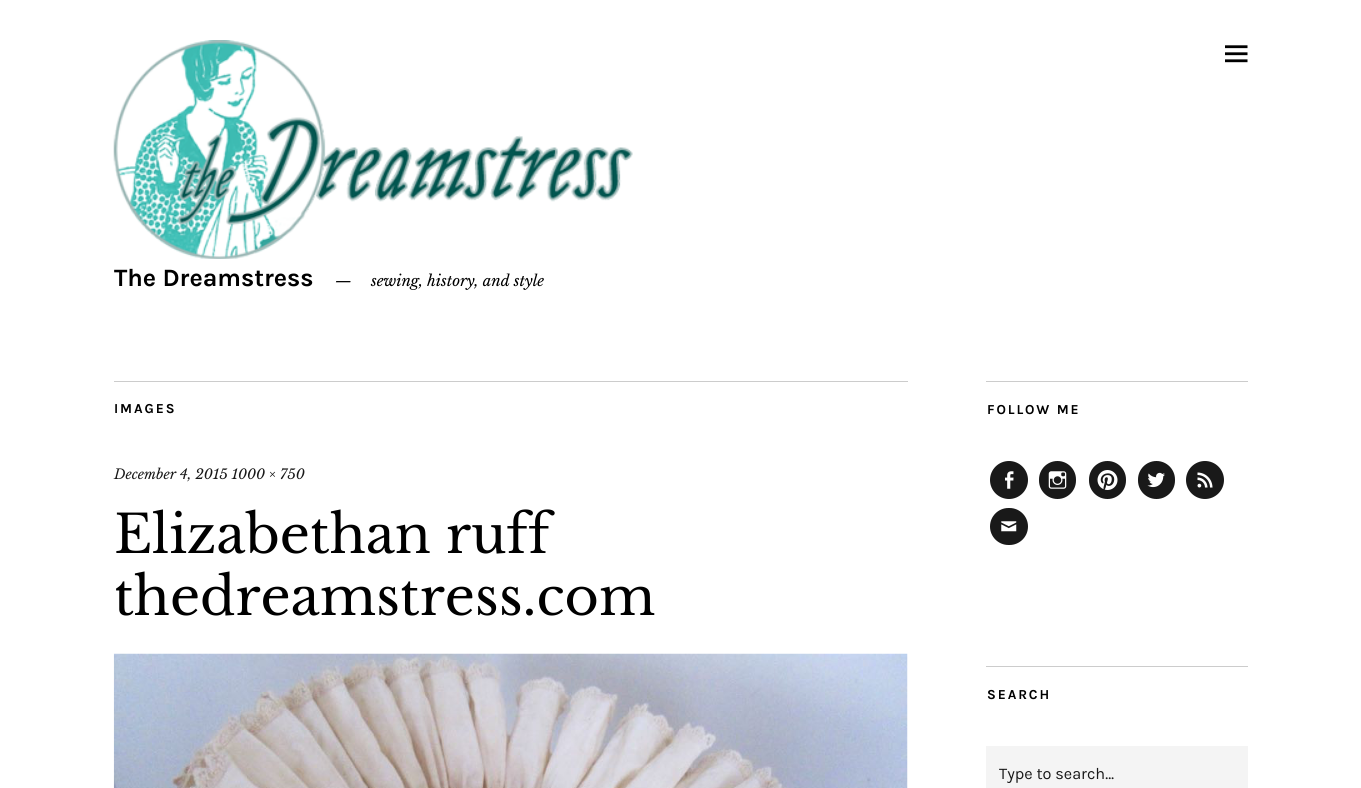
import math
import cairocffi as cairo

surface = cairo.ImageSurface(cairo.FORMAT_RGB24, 1361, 788)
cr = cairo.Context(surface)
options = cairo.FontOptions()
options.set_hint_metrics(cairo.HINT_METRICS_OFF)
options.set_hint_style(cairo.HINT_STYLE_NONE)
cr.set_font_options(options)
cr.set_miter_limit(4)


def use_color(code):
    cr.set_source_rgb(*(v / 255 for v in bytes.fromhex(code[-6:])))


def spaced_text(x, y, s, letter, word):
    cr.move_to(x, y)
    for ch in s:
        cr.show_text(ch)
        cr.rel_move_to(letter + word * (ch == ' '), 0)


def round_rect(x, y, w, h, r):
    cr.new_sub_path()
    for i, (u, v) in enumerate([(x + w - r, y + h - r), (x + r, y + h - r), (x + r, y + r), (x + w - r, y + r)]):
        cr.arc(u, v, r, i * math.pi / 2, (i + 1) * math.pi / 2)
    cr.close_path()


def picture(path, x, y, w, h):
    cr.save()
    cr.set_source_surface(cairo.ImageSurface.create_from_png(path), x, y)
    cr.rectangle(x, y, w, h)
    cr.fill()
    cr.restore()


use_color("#ffffff")
cr.paint()
picture("img1.png", 1225, 45, 23, 18)
picture("img2.png", 113, 40, 520, 219)
cr.select_font_face("Karla", cairo.FONT_SLANT_NORMAL, cairo.FONT_WEIGHT_BOLD)
cr.set_font_size(25)
use_color("#000000")
cr.move_to(114, 286)
cr.show_text("The Dreamstress")
cr.select_font_face("Libre Baskerville", cairo.FONT_SLANT_ITALIC)
cr.set_font_size(15)
cr.move_to(335, 286)
cr.show_text("—")
cr.move_to(371, 286)
cr.show_text("sewing, history, and style")
use_color("#cccccc")
cr.rectangle(114, 381, 794, 1)
cr.fill()
cr.select_font_face("Karla", cairo.FONT_SLANT_NORMAL, cairo.FONT_WEIGHT_BOLD)
cr.set_font_size(13.75)
use_color("#000000")
spaced_text(114, 413, "IMAGES", 1.9, 0)
cr.select_font_face("Libre Baskerville", cairo.FONT_SLANT_ITALIC)
use_color("#191919")
cr.move_to(114, 479)
cr.show_text("December 4, 2015 1000 × 750")
cr.select_font_face("Libre Baskerville")
cr.set_font_size(52.5)
use_color("#000000")
cr.move_to(114, 553)
cr.show_text("Elizabethan ruff")
cr.move_to(114, 615)
cr.show_text("thedreamstress.com")
picture("img3.png", 113, 653, 795, 135)
use_color("#cccccc")
cr.rectangle(986, 381, 262, 1)
cr.fill()
cr.rectangle(986, 666, 262, 1)
cr.fill()
cr.select_font_face("Karla", cairo.FONT_SLANT_NORMAL, cairo.FONT_WEIGHT_BOLD)
cr.set_font_size(13.75)
use_color("#000000")
spaced_text(987, 414, "FOLLOW ME", 1.9, 0)
use_color("#191919")
cr.new_path()
cr.arc(1009, 480, 19, 0, 2 * math.pi)
cr.fill()
picture("img4.png", 1005, 471, 9, 18)
round_rect(1039, 461, 37, 38, 18.5)
cr.fill()
picture("img5.png", 1048, 471, 19, 18)
round_rect(1089, 461, 37, 38, 18.5)
cr.fill()
picture("img6.png", 1097, 470, 21, 20)
round_rect(1138, 461, 37, 38, 18.5)
cr.fill()
picture("img7.png", 1147, 472, 18, 16)
cr.arc(1205, 480, 19, 0, 2 * math.pi)
cr.fill()
picture("img8.png", 1197, 472, 16, 16)
round_rect(990, 508, 38, 37, 18.5)
cr.fill()
picture("img9.png", 1001, 521, 16, 11)
use_color("#000000")
spaced_text(987, 699, "SEARCH", 1.9, 0)
use_color("#f4f4f4")
cr.rectangle(986, 746, 262, 42)
cr.fill()
cr.select_font_face("Karla")
cr.set_font_size(16.25)
use_color("#191919")
cr.move_to(999, 779)
cr.show_text("Type to search…")
surface.write_to_png("result.png")
